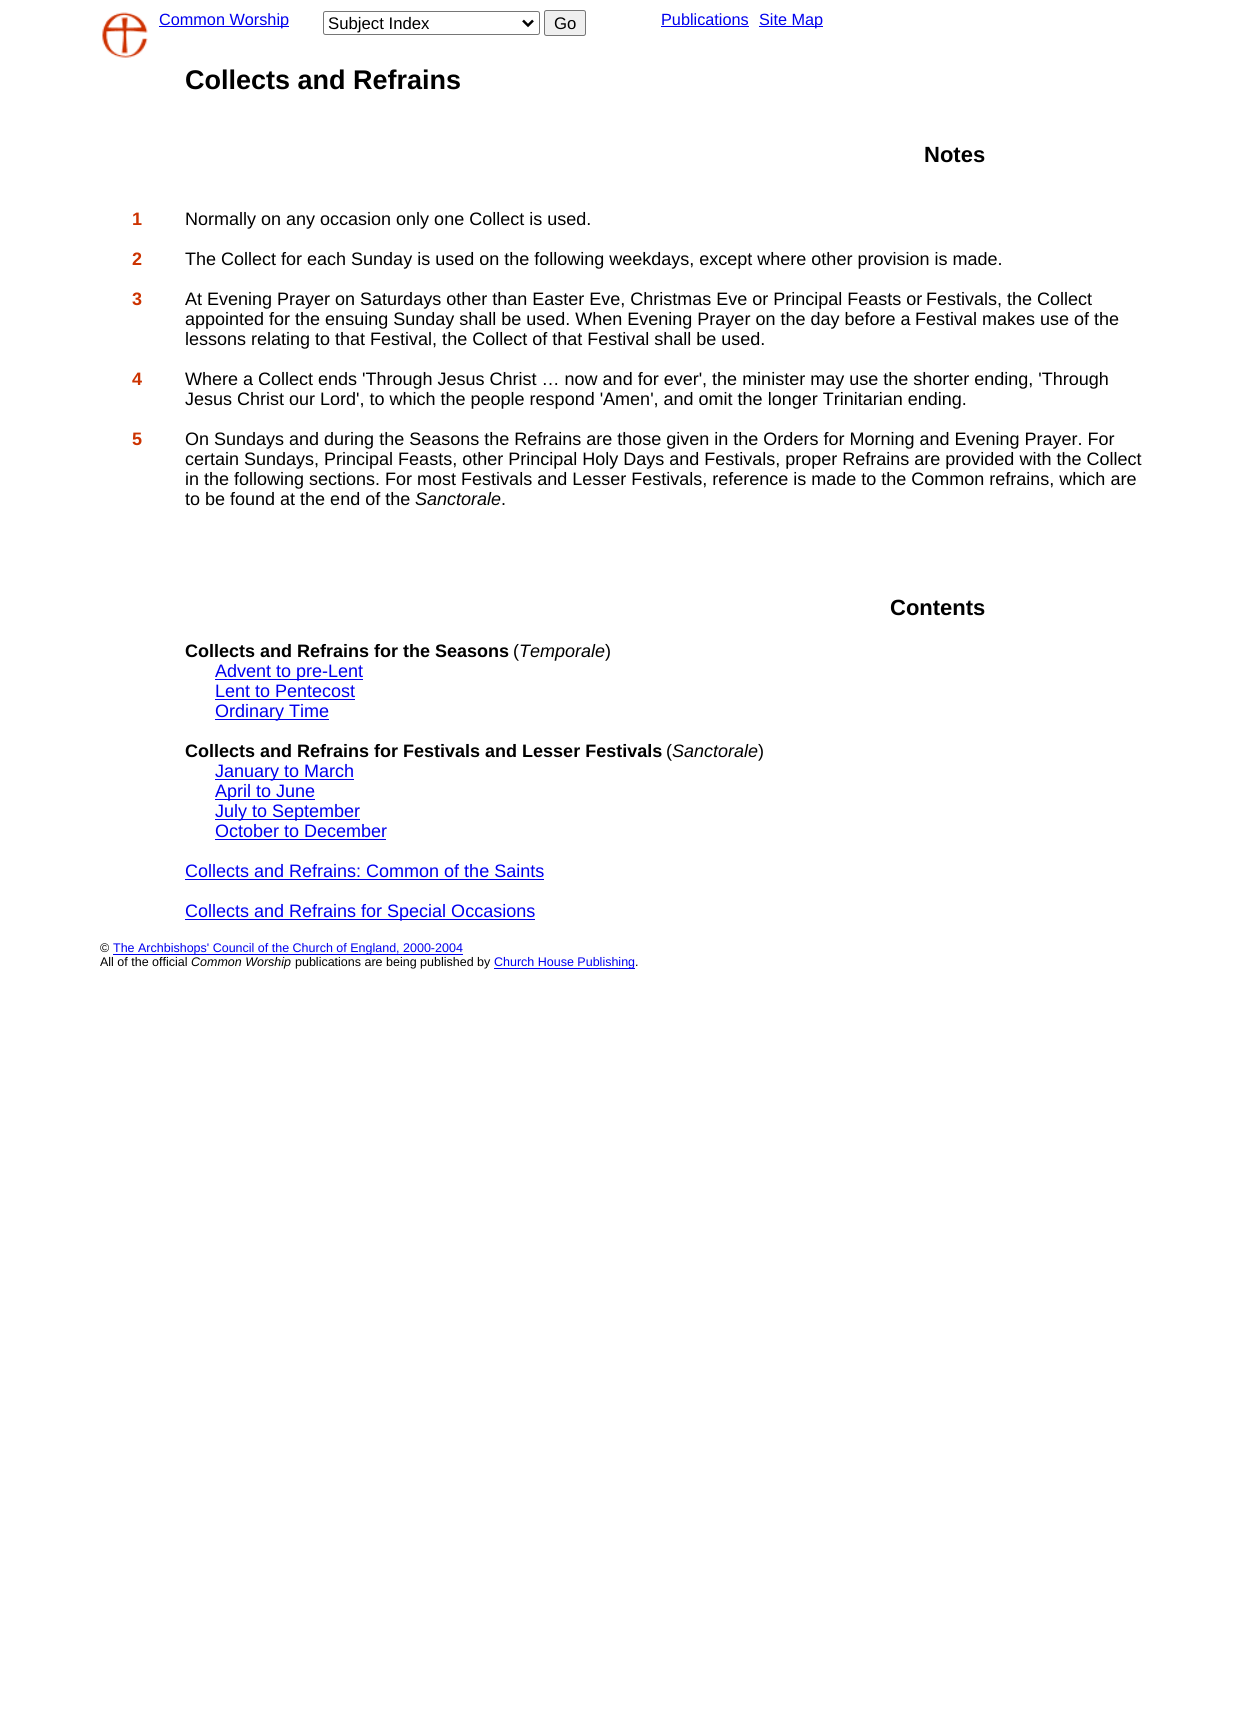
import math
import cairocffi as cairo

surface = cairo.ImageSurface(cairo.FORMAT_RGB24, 1253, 1712)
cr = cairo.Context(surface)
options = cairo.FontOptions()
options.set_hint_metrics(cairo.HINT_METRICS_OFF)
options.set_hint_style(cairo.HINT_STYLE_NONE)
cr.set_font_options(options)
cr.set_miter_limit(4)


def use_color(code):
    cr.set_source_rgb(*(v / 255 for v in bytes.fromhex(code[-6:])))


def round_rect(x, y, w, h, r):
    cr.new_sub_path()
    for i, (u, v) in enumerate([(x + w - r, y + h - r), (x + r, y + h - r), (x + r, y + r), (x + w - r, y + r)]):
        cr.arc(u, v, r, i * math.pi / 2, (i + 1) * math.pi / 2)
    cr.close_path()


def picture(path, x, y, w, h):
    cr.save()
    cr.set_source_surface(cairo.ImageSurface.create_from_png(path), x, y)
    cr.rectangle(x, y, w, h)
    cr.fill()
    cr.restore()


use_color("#ffffff")
cr.paint()
picture("img1.png", 102, 12, 46, 46)
use_color("#0000ee")
cr.rectangle(159, 26, 130, 1)
cr.fill()
cr.select_font_face("Liberation Sans")
cr.set_font_size(16.25)
cr.move_to(159, 25)
cr.show_text("Common Worship")
round_rect(323.5, 11.5, 216, 23, 2)
use_color("#767676")
cr.set_line_width(1)
cr.stroke()
cr.new_path()
cr.move_to(523, 20.5)
cr.line_to(528, 25.5)
cr.line_to(533, 20.5)
use_color("#000000")
cr.set_line_width(2.5)
cr.stroke()
cr.set_font_size(16.75)
cr.move_to(328, 29)
cr.show_text("Subject Index")
use_color("#efefef")
round_rect(544.5, 10.5, 41, 25, 2)
cr.fill_preserve()
use_color("#767676")
cr.set_line_width(1)
cr.stroke()
use_color("#000000")
cr.move_to(554, 29)
cr.show_text("Go")
cr.set_font_size(16.25)
use_color("#0000ee")
cr.move_to(661, 25)
cr.show_text("Publications")
cr.rectangle(661, 26, 88, 1)
cr.fill()
cr.rectangle(759, 26, 64, 1)
cr.fill()
cr.move_to(759, 25)
cr.show_text("Site Map")
cr.select_font_face("Liberation Sans", cairo.FONT_SLANT_NORMAL, cairo.FONT_WEIGHT_BOLD)
cr.set_font_size(27)
use_color("#000000")
cr.move_to(185, 89)
cr.show_text("Collects and Refrains")
cr.set_font_size(22)
cr.move_to(924, 162)
cr.show_text("Notes")
cr.set_font_size(18)
use_color("#cc3300")
cr.move_to(132, 225)
cr.show_text("1")
cr.select_font_face("Liberation Sans")
use_color("#000000")
cr.move_to(185, 225)
cr.show_text("Normally on any occasion only one Collect is used.")
cr.select_font_face("Liberation Sans", cairo.FONT_SLANT_NORMAL, cairo.FONT_WEIGHT_BOLD)
use_color("#cc3300")
cr.move_to(132, 265)
cr.show_text("2")
cr.select_font_face("Liberation Sans")
use_color("#000000")
cr.move_to(185, 265)
cr.show_text("The Collect for each Sunday is used on the following weekdays, except where other provision is made.")
cr.select_font_face("Liberation Sans", cairo.FONT_SLANT_NORMAL, cairo.FONT_WEIGHT_BOLD)
use_color("#cc3300")
cr.move_to(132, 305)
cr.show_text("3")
cr.select_font_face("Liberation Sans")
use_color("#000000")
cr.move_to(185, 305)
cr.show_text("At Evening Prayer on Saturdays other than Easter Eve, Christmas Eve or Principal Feasts or")
cr.move_to(926, 305)
cr.show_text("Festivals, the Collect")
cr.move_to(185, 325)
cr.show_text("appointed for the ensuing Sunday shall be used. When Evening Prayer on the day before a")
cr.move_to(915, 325)
cr.show_text("Festival makes use of the")
cr.move_to(185, 345)
cr.show_text("lessons relating to that Festival, the Collect of that Festival shall be used.")
cr.select_font_face("Liberation Sans", cairo.FONT_SLANT_NORMAL, cairo.FONT_WEIGHT_BOLD)
use_color("#cc3300")
cr.move_to(132, 385)
cr.show_text("4")
cr.select_font_face("Liberation Sans")
use_color("#000000")
cr.move_to(185, 385)
cr.show_text("Where a Collect ends 'Through Jesus Christ … now and for ever', the minister may use the shorter ending, 'Through")
cr.move_to(185, 405)
cr.show_text("Jesus Christ our Lord', to which the people respond 'Amen', and omit the longer Trinitarian ending.")
cr.select_font_face("Liberation Sans", cairo.FONT_SLANT_NORMAL, cairo.FONT_WEIGHT_BOLD)
use_color("#cc3300")
cr.move_to(132, 445)
cr.show_text("5")
cr.select_font_face("Liberation Sans")
use_color("#000000")
cr.move_to(185, 445)
cr.show_text("On Sundays and during the Seasons the Refrains are those given in the Orders for Morning and Evening Prayer. For")
cr.move_to(185, 465)
cr.show_text("certain Sundays, Principal Feasts, other Principal Holy Days and Festivals, proper Refrains are provided with the Collect")
cr.move_to(185, 485)
cr.show_text("in the following sections. For most Festivals and Lesser Festivals, reference is made to the Common refrains, which are")
cr.move_to(185, 505)
cr.show_text("to be found at the end of the")
cr.select_font_face("Liberation Sans", cairo.FONT_SLANT_ITALIC)
cr.move_to(415, 505)
cr.show_text("Sanctorale")
cr.select_font_face("Liberation Sans")
cr.move_to(501, 505)
cr.show_text(".")
cr.select_font_face("Liberation Sans", cairo.FONT_SLANT_NORMAL, cairo.FONT_WEIGHT_BOLD)
cr.set_font_size(22)
cr.move_to(890, 615)
cr.show_text("Contents")
cr.set_font_size(18)
cr.move_to(185, 657)
cr.show_text("Collects and Refrains for the Seasons")
cr.select_font_face("Liberation Sans")
cr.move_to(513, 657)
cr.show_text("(")
cr.select_font_face("Liberation Sans", cairo.FONT_SLANT_ITALIC)
cr.move_to(519, 657)
cr.show_text("Temporale")
cr.select_font_face("Liberation Sans")
cr.move_to(605, 657)
cr.show_text(")")
use_color("#0000ee")
cr.rectangle(215, 679, 148, 1)
cr.fill()
cr.move_to(215, 677)
cr.show_text("Advent to pre-Lent")
cr.move_to(215, 697)
cr.show_text("Lent to Pentecost")
cr.rectangle(215, 699, 140, 1)
cr.fill()
cr.rectangle(215, 719, 114, 1)
cr.fill()
cr.move_to(215, 717)
cr.show_text("Ordinary Time")
cr.select_font_face("Liberation Sans", cairo.FONT_SLANT_NORMAL, cairo.FONT_WEIGHT_BOLD)
use_color("#000000")
cr.move_to(185, 757)
cr.show_text("Collects and Refrains for Festivals and Lesser Festivals")
cr.select_font_face("Liberation Sans")
cr.move_to(666, 757)
cr.show_text("(")
cr.select_font_face("Liberation Sans", cairo.FONT_SLANT_ITALIC)
cr.move_to(672, 757)
cr.show_text("Sanctorale")
cr.select_font_face("Liberation Sans")
cr.move_to(758, 757)
cr.show_text(")")
use_color("#0000ee")
cr.rectangle(215, 779, 139, 1)
cr.fill()
cr.move_to(215, 777)
cr.show_text("January to March")
cr.rectangle(215, 799, 100, 1)
cr.fill()
cr.move_to(215, 797)
cr.show_text("April to June")
cr.rectangle(215, 819, 145, 1)
cr.fill()
cr.move_to(215, 817)
cr.show_text("July to September")
cr.move_to(215, 837)
cr.show_text("October to December")
cr.rectangle(215, 839, 171, 1)
cr.fill()
cr.move_to(185, 877)
cr.show_text("Collects and Refrains: Common of the Saints")
cr.rectangle(185, 879, 359, 1)
cr.fill()
cr.rectangle(185, 919, 350, 1)
cr.fill()
cr.move_to(185, 917)
cr.show_text("Collects and Refrains for Special Occasions")
cr.set_font_size(12.5)
use_color("#000000")
cr.move_to(100, 952)
cr.show_text("©")
use_color("#0000ee")
cr.rectangle(113, 954, 350, 1)
cr.fill()
cr.move_to(113, 952)
cr.show_text("The Archbishops' Council of the Church of England, 2000-2004")
use_color("#000000")
cr.move_to(100, 966)
cr.show_text("All of the official")
cr.select_font_face("Liberation Sans", cairo.FONT_SLANT_ITALIC)
cr.move_to(191, 966)
cr.show_text("Common Worship")
cr.select_font_face("Liberation Sans")
cr.move_to(295, 966)
cr.show_text("publications are being published by")
use_color("#0000ee")
cr.rectangle(494, 968, 141, 1)
cr.fill()
cr.move_to(494, 966)
cr.show_text("Church House Publishing")
use_color("#000000")
cr.move_to(635, 966)
cr.show_text(".")
surface.write_to_png("result.png")
